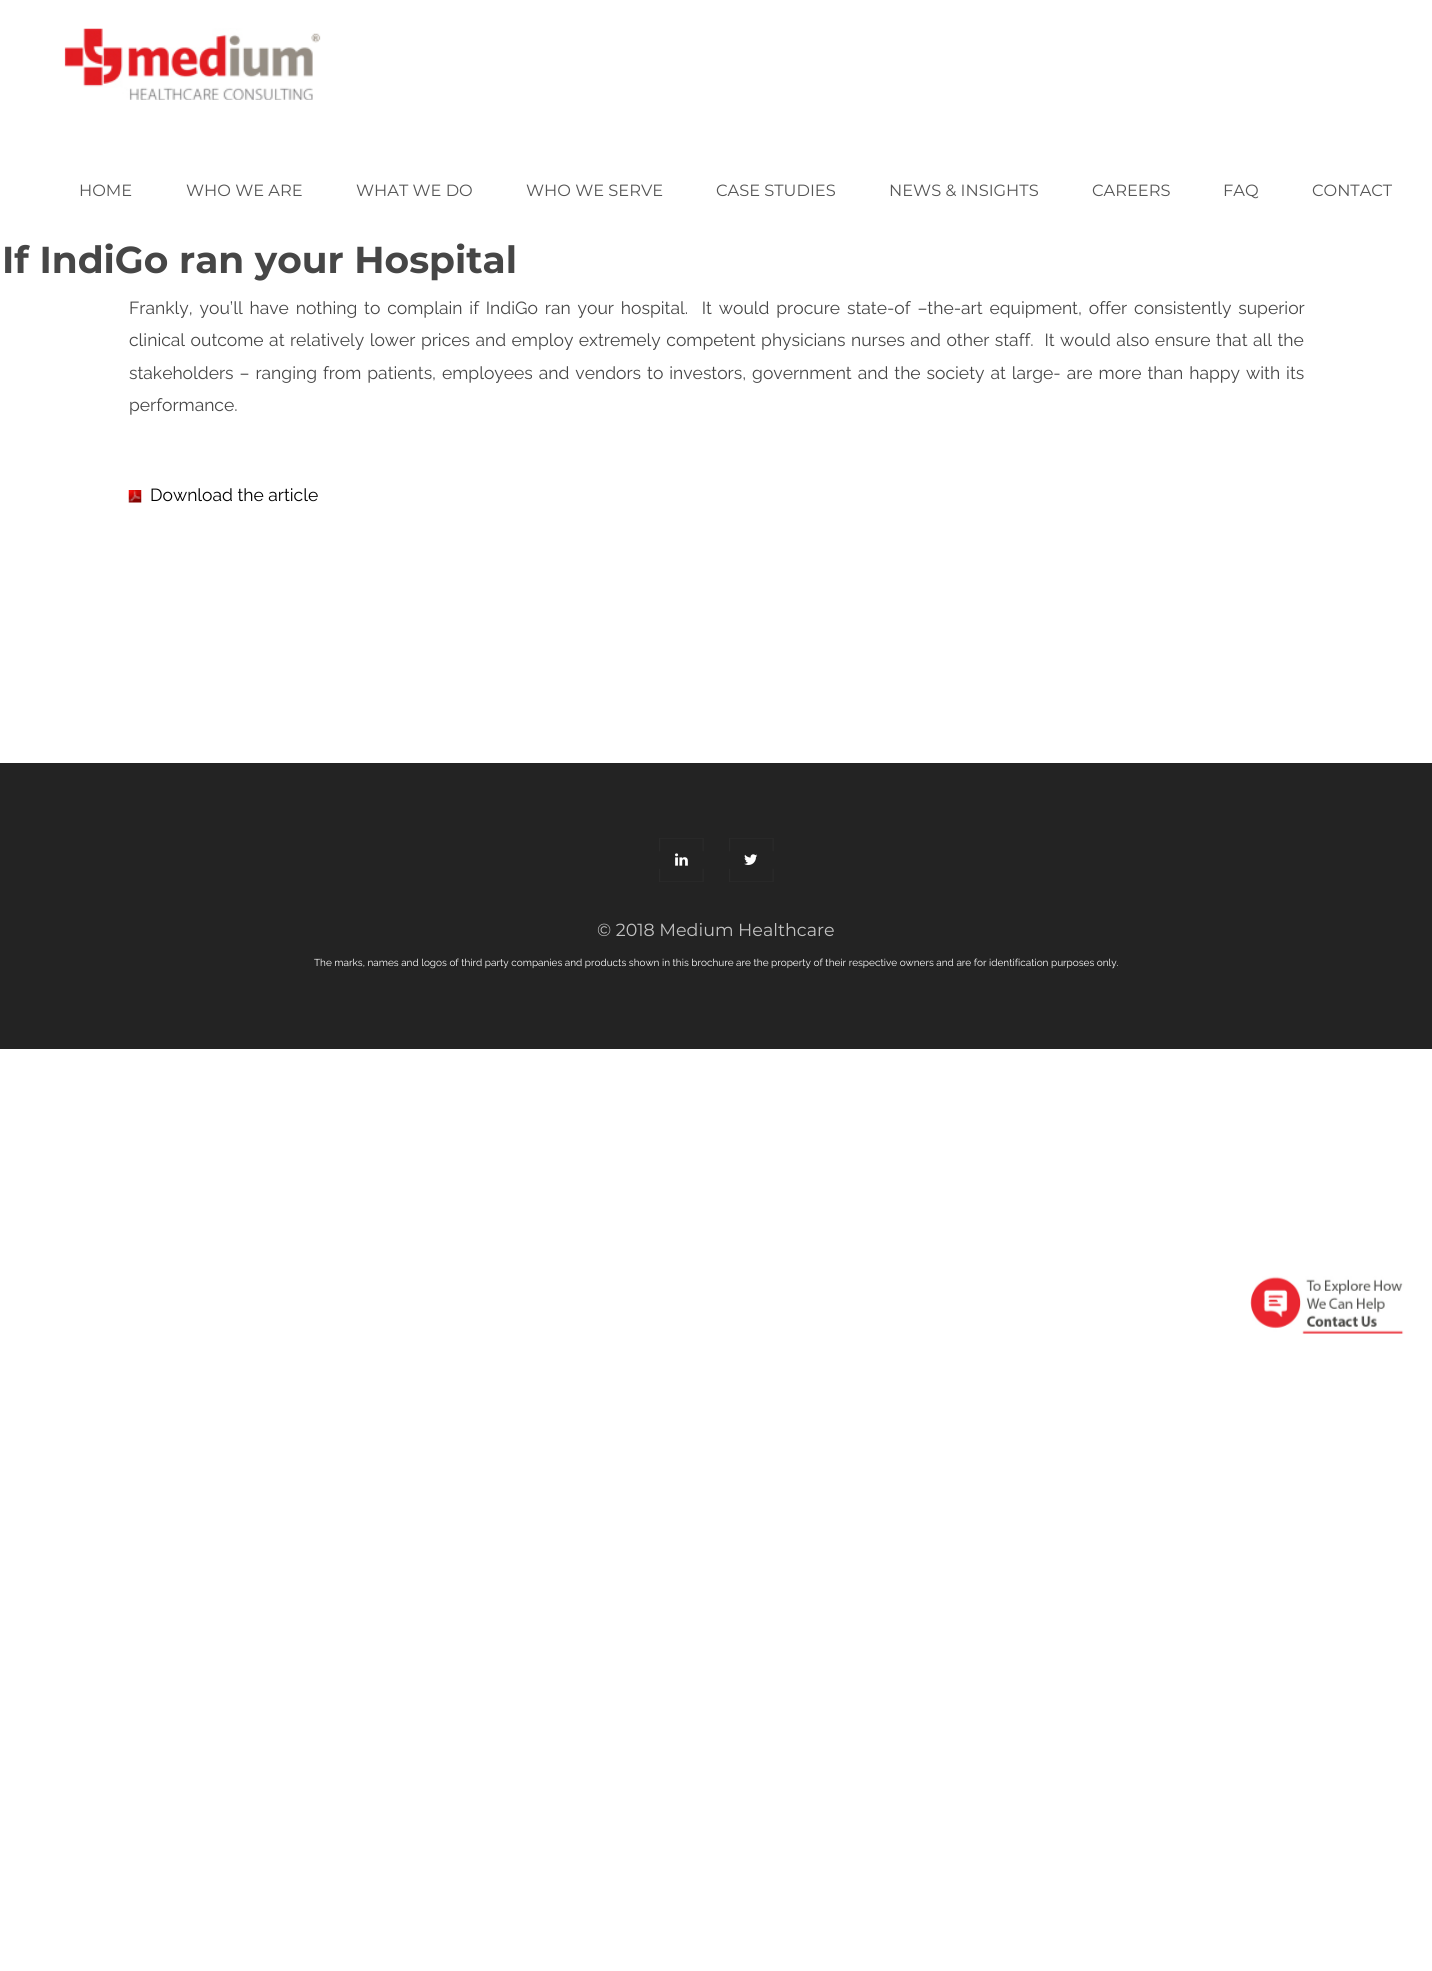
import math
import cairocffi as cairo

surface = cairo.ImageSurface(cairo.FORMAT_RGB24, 1432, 1971)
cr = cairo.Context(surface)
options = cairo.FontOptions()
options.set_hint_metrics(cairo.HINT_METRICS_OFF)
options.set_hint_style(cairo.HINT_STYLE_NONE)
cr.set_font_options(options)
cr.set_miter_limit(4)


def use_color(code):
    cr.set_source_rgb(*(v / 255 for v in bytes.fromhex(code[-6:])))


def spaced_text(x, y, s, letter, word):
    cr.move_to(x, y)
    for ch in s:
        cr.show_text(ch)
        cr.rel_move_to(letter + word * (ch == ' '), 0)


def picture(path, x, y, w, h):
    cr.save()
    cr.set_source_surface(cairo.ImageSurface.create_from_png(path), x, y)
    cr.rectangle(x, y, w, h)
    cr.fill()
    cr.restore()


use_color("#ffffff")
cr.paint()
picture("img1.png", 64, 28, 257, 72)
cr.select_font_face("Montserrat")
cr.set_font_size(16.25)
use_color("#555555")
cr.move_to(79, 196)
cr.show_text("HOME")
cr.move_to(186, 196)
cr.show_text("WHO WE ARE")
cr.move_to(356, 196)
cr.show_text("WHAT WE DO")
cr.move_to(526, 196)
cr.show_text("WHO WE SERVE")
cr.move_to(716, 196)
cr.show_text("CASE STUDIES")
cr.move_to(889, 196)
cr.show_text("NEWS & INSIGHTS")
cr.move_to(1092, 196)
cr.show_text("CAREERS")
cr.move_to(1223, 196)
cr.show_text("FAQ")
cr.move_to(1312, 196)
cr.show_text("CONTACT")
cr.select_font_face("Montserrat", cairo.FONT_SLANT_NORMAL, cairo.FONT_WEIGHT_BOLD)
cr.set_font_size(37.5)
use_color("#464646")
cr.move_to(2, 273)
cr.show_text("If IndiGo ran your Hospital")
cr.select_font_face("Raleway")
cr.set_font_size(17.5)
spaced_text(129, 314, "Frankly, you’ll have nothing to complain if IndiGo ran your hospital.  It would procure state-of –the-art equipment, offer consistently superior", 0, 2.4)
spaced_text(129, 346, "clinical outcome at relatively lower prices and employ extremely competent physicians nurses and other staff.  It would also ensure that all the", 0, 1)
spaced_text(129, 379, "stakeholders – ranging from patients, employees and vendors to investors, government and the society at large- are more than happy with its", 0, 1.5)
cr.move_to(129, 411)
cr.show_text("performance.")
picture("img2.png", 128, 490, 14, 13)
use_color("#000000")
cr.move_to(150, 501)
cr.show_text("Download the article")
use_color("#232323")
cr.rectangle(0, 763, 1432, 286)
cr.fill()
picture("img3.png", 659, 838, 45, 44)
picture("img4.png", 675, 853, 13, 13)
picture("img3.png", 729, 838, 45, 44)
picture("img5.png", 744, 854, 14, 11)
cr.select_font_face("Montserrat")
use_color("#c2c2c2")
cr.move_to(597, 936)
cr.show_text("© 2018 Medium Healthcare")
cr.select_font_face("Raleway")
cr.set_font_size(10)
use_color("#ffffff")
cr.move_to(314, 966)
cr.show_text("The marks, names and logos of third party companies and products shown in this brochure are the property of their respective owners and are for identification purposes only.")
picture("img6.png", 1250, 1276, 154, 58)
surface.write_to_png("result.png")
